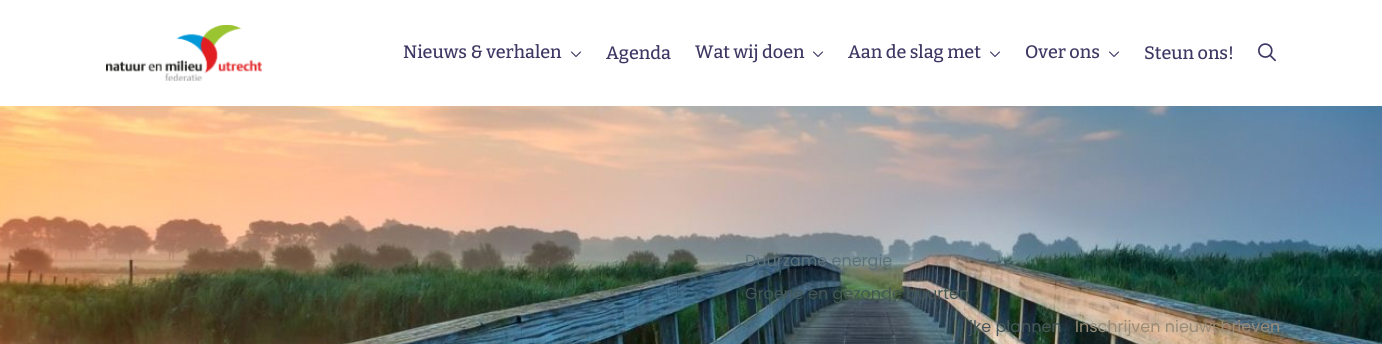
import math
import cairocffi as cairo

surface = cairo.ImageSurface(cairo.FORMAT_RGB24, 1382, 344)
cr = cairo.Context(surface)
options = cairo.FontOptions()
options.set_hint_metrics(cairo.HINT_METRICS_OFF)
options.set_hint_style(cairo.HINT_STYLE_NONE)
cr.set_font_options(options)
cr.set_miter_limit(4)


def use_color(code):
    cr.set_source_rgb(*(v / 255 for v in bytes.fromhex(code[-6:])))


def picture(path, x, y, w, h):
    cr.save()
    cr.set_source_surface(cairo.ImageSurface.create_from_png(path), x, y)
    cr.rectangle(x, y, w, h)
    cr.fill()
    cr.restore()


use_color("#ffffff")
cr.paint()
picture("img1.png", 106, 25, 156, 56)
cr.select_font_face("Bitter Medium")
cr.set_font_size(18)
use_color("#3e3763")
cr.move_to(403, 58)
cr.show_text("Nieuws & verhalen")
picture("img2.png", 571, 51, 10, 6)
cr.move_to(695, 58)
cr.show_text("Wat wij doen")
picture("img2.png", 813, 51, 10, 6)
picture("img4.png", 0, 106, 1382, 238)
cr.select_font_face("Poppins")
cr.set_font_size(16)
use_color("#5b717a")
cr.move_to(745, 266)
cr.show_text("Duurzame energie")
use_color("#435753")
cr.move_to(745, 299)
cr.show_text("Groene en gezonde buurten")
use_color("#46565a")
cr.move_to(969, 332)
cr.show_text("jke plannen")
picture("img3.png", 1258, 43, 18, 19)
cr.select_font_face("Bitter Medium")
cr.set_font_size(18)
use_color("#3e3763")
cr.move_to(606, 59)
cr.show_text("Agenda")
cr.move_to(848, 58)
cr.show_text("Aan de slag met")
picture("img2.png", 990, 51, 10, 6)
cr.move_to(1025, 58)
cr.show_text("Over ons")
picture("img2.png", 1109, 51, 10, 6)
cr.select_font_face("Poppins")
cr.set_font_size(16)
use_color("#988b78")
cr.move_to(1075, 332)
cr.show_text("Inschrijven nieuwsbrieven")
cr.select_font_face("Bitter Medium")
cr.set_font_size(18)
use_color("#3e3763")
cr.move_to(1144, 59)
cr.show_text("Steun ons!")
surface.write_to_png("result.png")
